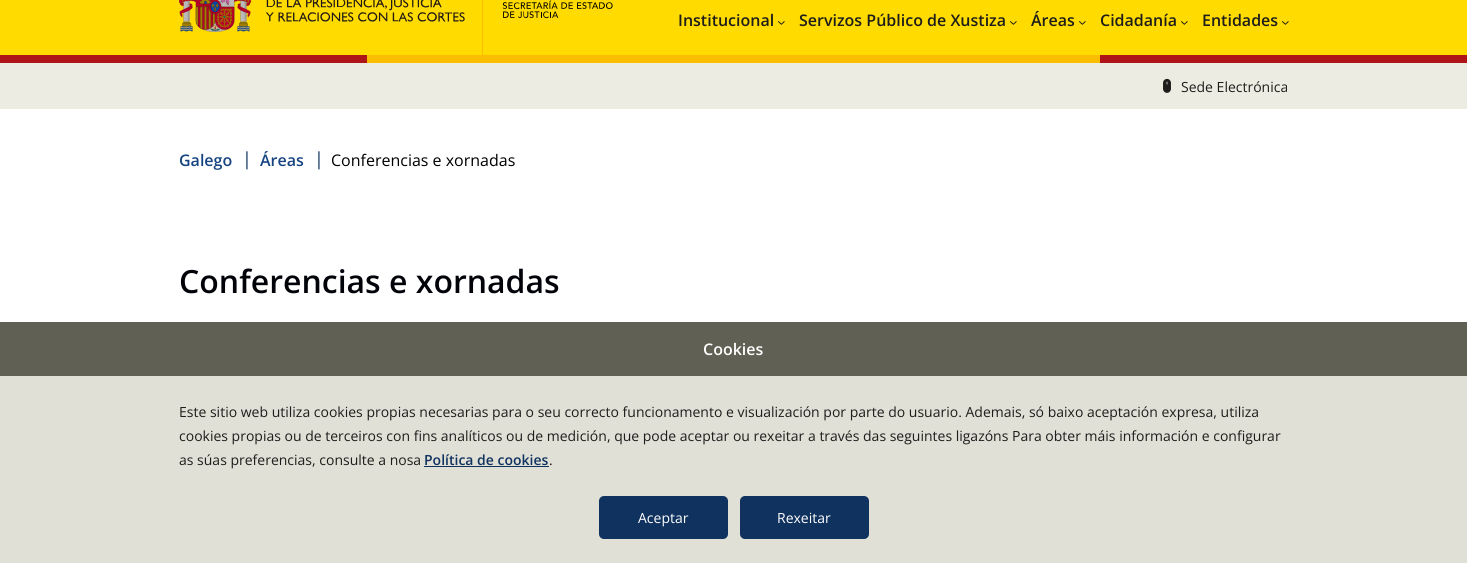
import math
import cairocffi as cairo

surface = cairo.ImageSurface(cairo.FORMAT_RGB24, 1467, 563)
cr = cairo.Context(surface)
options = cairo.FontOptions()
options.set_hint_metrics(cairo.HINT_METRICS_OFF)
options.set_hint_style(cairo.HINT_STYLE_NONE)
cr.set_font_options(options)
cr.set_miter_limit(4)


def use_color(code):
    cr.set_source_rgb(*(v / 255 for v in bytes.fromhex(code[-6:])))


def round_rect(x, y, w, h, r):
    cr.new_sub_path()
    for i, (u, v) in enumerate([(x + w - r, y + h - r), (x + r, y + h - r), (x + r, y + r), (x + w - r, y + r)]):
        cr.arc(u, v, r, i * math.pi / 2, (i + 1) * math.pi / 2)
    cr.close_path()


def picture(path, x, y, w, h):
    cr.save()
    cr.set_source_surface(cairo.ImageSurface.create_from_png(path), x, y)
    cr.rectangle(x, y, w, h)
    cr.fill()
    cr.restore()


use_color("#ffffff")
cr.paint()
use_color("#ffdb00")
cr.rectangle(0, 0, 1467, 55)
cr.fill()
picture("img1.png", 179, 0, 286, 32)
use_color("#fabd00")
cr.rectangle(482, 0, 1, 56)
cr.fill()
picture("img2.png", 502, 0, 111, 19)
cr.select_font_face("Open Sans SemiBold")
cr.set_font_size(16)
use_color("#1d1d1b")
cr.move_to(678, 26)
cr.show_text("Institucional")
picture("img3.png", 778, 21, 7, 4)
cr.move_to(799, 26)
cr.show_text("Servizos Público de Xustiza")
picture("img3.png", 1010, 21, 7, 4)
cr.move_to(1031, 26)
cr.show_text("Áreas")
picture("img3.png", 1079, 21, 7, 4)
cr.move_to(1100, 26)
cr.show_text("Cidadanía")
picture("img3.png", 1181, 21, 7, 4)
cr.move_to(1202, 26)
cr.show_text("Entidades")
picture("img3.png", 1282, 21, 7, 4)
use_color("#fabd00")
cr.rectangle(367, 55, 733, 8)
cr.fill()
use_color("#ad1519")
cr.rectangle(0, 55, 367, 8)
cr.fill()
cr.rectangle(1100, 55, 367, 8)
cr.fill()
use_color("#ecece2")
cr.rectangle(0, 63, 1467, 46)
cr.fill()
picture("img4.png", 1163, 78, 8, 15)
cr.select_font_face("Open Sans")
cr.set_font_size(14)
use_color("#1d1d1b")
cr.move_to(1181, 92)
cr.show_text("Sede Electrónica")
cr.select_font_face("Open Sans SemiBold")
cr.set_font_size(16)
use_color("#154481")
cr.move_to(179, 166)
cr.show_text("Galego")
cr.select_font_face("Open Sans")
cr.set_font_size(18)
use_color("#10325f")
cr.move_to(242, 165)
cr.show_text("|")
cr.select_font_face("Open Sans SemiBold")
cr.set_font_size(16)
use_color("#154481")
cr.move_to(260, 166)
cr.show_text("Áreas")
cr.select_font_face("Open Sans")
cr.set_font_size(18)
use_color("#10325f")
cr.move_to(314, 165)
cr.show_text("|")
cr.set_font_size(16)
use_color("#000000")
cr.move_to(331, 166)
cr.show_text("Conferencias e xornadas")
cr.select_font_face("Open Sans SemiBold")
cr.set_font_size(32)
use_color("#010309")
cr.move_to(179, 293)
cr.show_text("Conferencias e xornadas")
use_color("#e0e0d7")
cr.rectangle(0, 376, 1467, 187)
cr.fill()
use_color("#606055")
cr.rectangle(0, 322, 1467, 54)
cr.fill()
cr.set_font_size(16)
use_color("#ffffff")
cr.move_to(703, 355)
cr.show_text("Cookies")
cr.select_font_face("Open Sans")
cr.set_font_size(14)
use_color("#1d1d1b")
cr.move_to(179, 417)
cr.show_text("Este sitio web utiliza cookies propias necesarias para o seu correcto funcionamento e visualización por parte do usuario. Ademais, só baixo aceptación expresa, utiliza")
cr.move_to(179, 441)
cr.show_text("cookies propias ou de terceiros con fins analíticos ou de medición, que pode aceptar ou rexeitar a través das seguintes ligazóns Para obter máis información e configurar")
cr.move_to(179, 465)
cr.show_text("as súas preferencias, consulte a nosa")
cr.select_font_face("Open Sans SemiBold")
use_color("#10325f")
cr.move_to(424, 465)
cr.show_text("Política de cookies")
cr.rectangle(424, 466, 125, 1)
cr.fill()
cr.select_font_face("Open Sans")
use_color("#1d1d1b")
cr.move_to(549, 465)
cr.show_text(".")
use_color("#10325f")
round_rect(599, 496, 129, 43, 5)
cr.fill()
use_color("#ffffff")
cr.move_to(638, 523)
cr.show_text("Aceptar")
use_color("#10325f")
round_rect(740, 496, 129, 43, 5)
cr.fill()
use_color("#ffffff")
cr.move_to(777, 523)
cr.show_text("Rexeitar")
surface.write_to_png("result.png")
